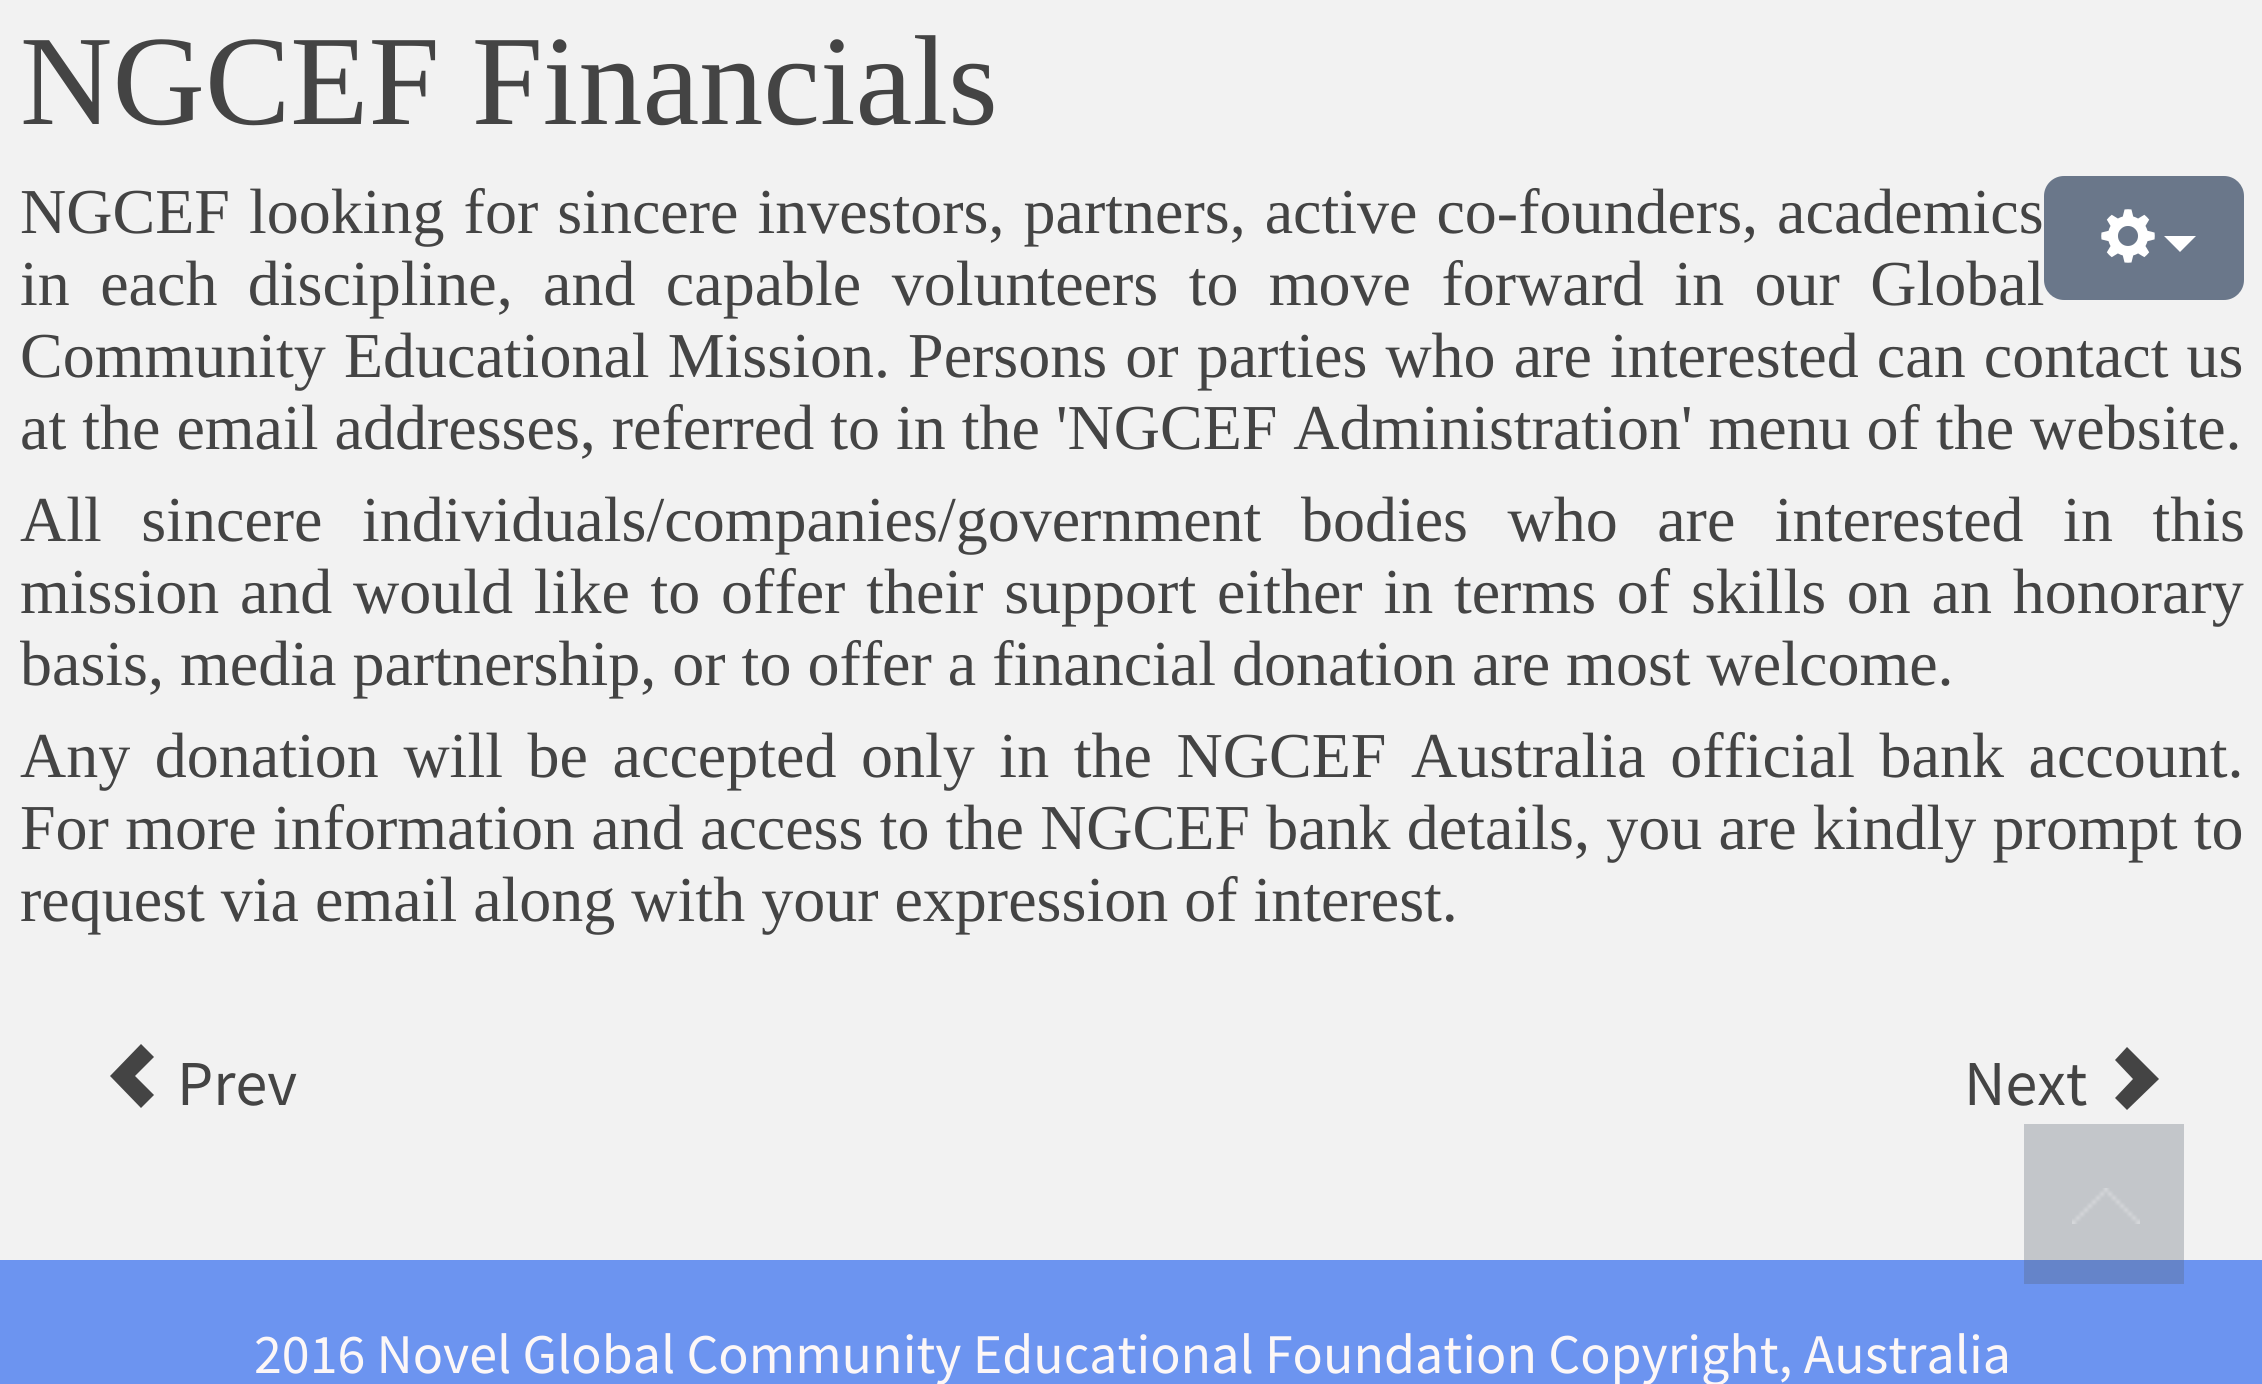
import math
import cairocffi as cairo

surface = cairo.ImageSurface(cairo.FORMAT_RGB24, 2262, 1384)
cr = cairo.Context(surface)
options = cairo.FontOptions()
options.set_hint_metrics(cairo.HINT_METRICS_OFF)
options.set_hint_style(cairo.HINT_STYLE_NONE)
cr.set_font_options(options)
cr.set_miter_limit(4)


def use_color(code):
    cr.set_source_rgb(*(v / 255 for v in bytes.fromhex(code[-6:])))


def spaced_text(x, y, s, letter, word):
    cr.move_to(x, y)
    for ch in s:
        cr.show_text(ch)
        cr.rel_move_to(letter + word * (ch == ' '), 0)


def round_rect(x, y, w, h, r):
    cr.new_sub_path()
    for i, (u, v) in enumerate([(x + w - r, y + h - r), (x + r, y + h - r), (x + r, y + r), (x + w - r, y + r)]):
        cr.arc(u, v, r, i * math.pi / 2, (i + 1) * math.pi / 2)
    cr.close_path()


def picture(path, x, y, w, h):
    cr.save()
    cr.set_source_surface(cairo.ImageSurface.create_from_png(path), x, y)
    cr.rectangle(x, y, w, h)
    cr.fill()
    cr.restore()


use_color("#f2f2f2")
cr.paint()
use_color("#c3c6ca")
cr.rectangle(2024, 1124, 160, 136)
cr.fill()
cr.select_font_face("Liberation Serif")
cr.set_font_size(128)
use_color("#444444")
cr.move_to(20, 124)
cr.show_text("NGCEF Financials")
use_color("#6a778a")
round_rect(2048, 180, 192, 116, 16)
cr.fill_preserve()
cr.set_line_width(8)
cr.stroke()
picture("img1.png", 2101, 209, 54, 54)
use_color("#ffffff")
cr.new_path()
cr.move_to(2164, 236)
cr.line_to(2196, 236)
cr.line_to(2180, 252)
cr.close_path()
cr.fill()
cr.set_font_size(64)
use_color("#444444")
cr.move_to(20, 233)
cr.show_text("NGCEF")
spaced_text(249, 233, "looking for sincere investors, partners, active co-founders, academics", 0, 3)
spaced_text(20, 305, "in each discipline, and capable volunteers to move forward in our Global", 0, 14.4)
spaced_text(20, 377, "Community Educational Mission. Persons or parties who are interested can contact us", 0, 2.1)
cr.move_to(20, 449)
cr.show_text("at the email addresses, referred to in the 'NGCEF Administration' menu of the website.")
spaced_text(20, 541, "All sincere individuals/companies/government bodies who are interested in this", 0, 23.5)
spaced_text(20, 613, "mission and would like to offer their support either in terms of skills on an honorary", 0, 4.75)
cr.move_to(20, 685)
cr.show_text("basis, media partnership, or to offer a financial donation are most welcome.")
spaced_text(20, 777, "Any donation will be accepted only in the NGCEF Australia official bank account.", 0, 8.6)
spaced_text(20, 849, "For more information and access to the NGCEF bank details, you are kindly prompt to", 0, 0.25)
cr.move_to(20, 921)
cr.show_text("request via email along with your expression of interest.")
cr.new_path()
cr.move_to(110, 1076)
cr.line_to(141, 1108)
cr.line_to(154, 1095)
cr.line_to(135, 1076)
cr.line_to(154, 1057)
cr.line_to(141, 1044)
cr.close_path()
cr.fill()
cr.select_font_face("Source Sans Pro")
cr.move_to(177, 1105)
cr.show_text("Prev")
cr.move_to(1964, 1105)
cr.show_text("Next")
cr.new_path()
cr.move_to(2115, 1098)
cr.line_to(2133, 1079)
cr.line_to(2115, 1060)
cr.line_to(2127, 1047)
cr.line_to(2159, 1079)
cr.line_to(2127, 1110)
cr.close_path()
cr.fill()
picture("img2.png", 2072, 1188, 68, 36)
use_color("#6c94f0")
cr.rectangle(0, 1260, 2262, 124)
cr.fill()
use_color("#6584c9")
cr.rectangle(2024, 1260, 160, 24)
cr.fill()
cr.set_font_size(56)
use_color("#fcf7f7")
cr.move_to(254, 1373)
cr.show_text("2016 Novel Global Community Educational Foundation Copyright, Australia")
surface.write_to_png("result.png")
